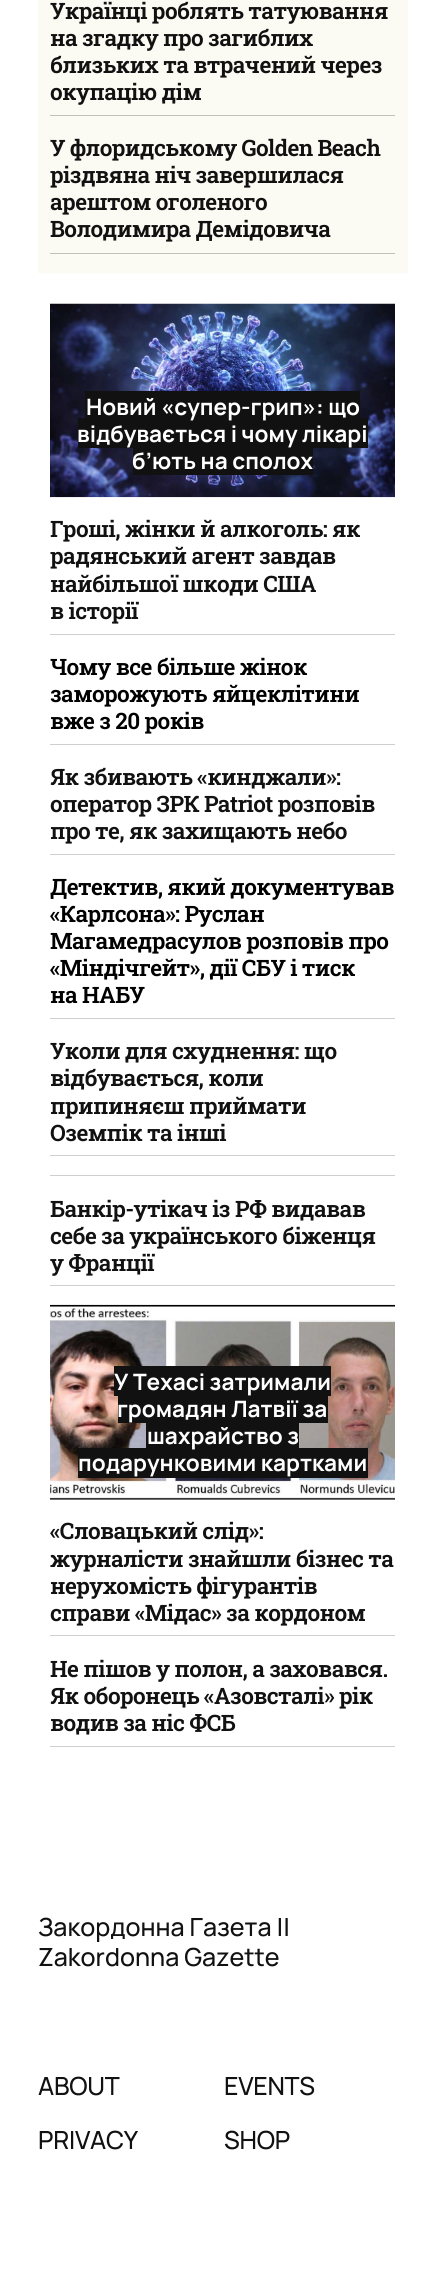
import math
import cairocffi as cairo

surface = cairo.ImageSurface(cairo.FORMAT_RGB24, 444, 2280)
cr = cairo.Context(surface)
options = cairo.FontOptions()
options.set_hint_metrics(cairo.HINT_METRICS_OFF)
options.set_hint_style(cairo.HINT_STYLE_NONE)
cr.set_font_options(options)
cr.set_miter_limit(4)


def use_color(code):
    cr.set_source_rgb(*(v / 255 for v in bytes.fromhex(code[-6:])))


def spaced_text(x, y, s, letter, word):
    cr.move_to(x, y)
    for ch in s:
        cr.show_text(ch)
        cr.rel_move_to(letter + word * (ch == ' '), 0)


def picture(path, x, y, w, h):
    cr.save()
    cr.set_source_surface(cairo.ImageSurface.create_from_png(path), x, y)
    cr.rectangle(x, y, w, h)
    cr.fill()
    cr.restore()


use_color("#ffffff")
cr.paint()
use_color("#fbfaf3")
cr.rectangle(38, 0, 370, 273)
cr.fill()
cr.select_font_face("Roboto Slab SemiBold")
cr.set_font_size(22.6)
use_color("#111111")
spaced_text(50, 19, "Українці роблять татуювання", -0.6, 0)
spaced_text(50, 46, "на згадку про загиблих", -0.6, 0)
spaced_text(50, 73, "близьких та втрачений через", -0.6, 0)
spaced_text(50, 100, "окупацію дім", -0.6, 0)
use_color("#c1c0bb")
cr.rectangle(50, 115, 345, 1)
cr.fill()
use_color("#111111")
spaced_text(50, 156, "У флоридському Golden Beach", -0.6, 0)
spaced_text(50, 183, "різдвяна ніч завершилася", -0.6, 0)
spaced_text(50, 210, "арештом оголеного", -0.6, 0)
spaced_text(50, 237, "Володимира Демідовича", -0.6, 0)
use_color("#c1c0bb")
cr.rectangle(50, 253, 345, 1)
cr.fill()
picture("img1.png", 50, 303, 345, 195)
use_color("#111111")
cr.rectangle(85, 391, 275, 27)
cr.fill()
cr.rectangle(78, 418, 290, 30)
cr.fill()
cr.select_font_face("Manrope", cairo.FONT_SLANT_NORMAL, cairo.FONT_WEIGHT_BOLD)
use_color("#ffffff")
cr.move_to(86, 415)
cr.show_text("Новий «супер-грип»: що")
cr.move_to(77, 442)
cr.show_text("відбувається і чому лікарі")
use_color("#111111")
cr.rectangle(133, 448, 180, 27)
cr.fill()
use_color("#ffffff")
cr.move_to(132, 469)
cr.show_text("б’ють на сполох")
cr.select_font_face("Roboto Slab SemiBold")
use_color("#111111")
spaced_text(50, 537, "Гроші, жінки й алкоголь: як", -0.6, 0)
spaced_text(50, 564, "радянський агент завдав", -0.6, 0)
spaced_text(50, 592, "найбільшої шкоди США", -0.6, 0)
spaced_text(50, 619, "в історії", -0.6, 0)
use_color("#cfcfcf")
cr.rectangle(50, 634, 345, 1)
cr.fill()
use_color("#000000")
spaced_text(50, 675, "Чому все більше жінок", -0.6, 0)
spaced_text(50, 702, "заморожують яйцеклітини", -0.6, 0)
spaced_text(50, 729, "вже з 20 років", -0.6, 0)
use_color("#cfcfcf")
cr.rectangle(50, 744, 345, 1)
cr.fill()
use_color("#111111")
spaced_text(50, 785, "Як збивають «кинджали»:", -0.6, 0)
spaced_text(50, 812, "оператор ЗРК Patriot розповів", -0.6, 0)
spaced_text(50, 839, "про те, як захищають небо", -0.6, 0)
use_color("#cfcfcf")
cr.rectangle(50, 854, 345, 1)
cr.fill()
use_color("#000000")
spaced_text(50, 895, "Детектив, який документував", -0.6, 0)
spaced_text(50, 922, "«Карлсона»: Руслан", -0.6, 0)
spaced_text(50, 949, "Магамедрасулов розповів про", -0.6, 0)
spaced_text(50, 976, "«Міндічгейт», дії СБУ і тиск", -0.6, 0)
spaced_text(50, 1003, "на НАБУ", -0.6, 0)
use_color("#cfcfcf")
cr.rectangle(50, 1018, 345, 1)
cr.fill()
use_color("#111111")
spaced_text(50, 1059, "Уколи для схуднення: що", -0.6, 0)
spaced_text(50, 1086, "відбувається, коли", -0.6, 0)
spaced_text(50, 1114, "припиняєш приймати", -0.6, 0)
spaced_text(50, 1141, "Оземпік та інші", -0.6, 0)
use_color("#cfcfcf")
cr.rectangle(50, 1155, 345, 1)
cr.fill()
cr.rectangle(50, 1175, 345, 1)
cr.fill()
use_color("#111111")
spaced_text(50, 1217, "Банкір-утікач із РФ видавав", -0.6, 0)
spaced_text(50, 1244, "себе за українського біженця", -0.6, 0)
spaced_text(50, 1271, "у Франції", -0.6, 0)
use_color("#cfcfcf")
cr.rectangle(50, 1285, 345, 1)
cr.fill()
picture("img2.png", 50, 1304, 345, 196)
use_color("#111111")
cr.rectangle(114, 1366, 217, 30)
cr.fill()
cr.select_font_face("Manrope", cairo.FONT_SLANT_NORMAL, cairo.FONT_WEIGHT_BOLD)
use_color("#ffffff")
cr.move_to(114, 1390)
cr.show_text("У Техасі затримали")
use_color("#111111")
cr.rectangle(118, 1396, 210, 27)
cr.fill()
use_color("#ffffff")
cr.move_to(117, 1417)
cr.show_text("громадян Латвії за")
use_color("#111111")
cr.rectangle(146, 1423, 153, 25)
cr.fill()
cr.rectangle(78, 1448, 290, 30)
cr.fill()
use_color("#ffffff")
cr.move_to(147, 1444)
cr.show_text("шахрайство з")
cr.move_to(78, 1471)
cr.show_text("подарунковими картками")
cr.select_font_face("Roboto Slab SemiBold")
use_color("#111111")
spaced_text(50, 1539, "«Словацький слід»:", -0.6, 0)
spaced_text(50, 1567, "журналісти знайшли бізнес та", -0.6, 0)
spaced_text(50, 1594, "нерухомість фігурантів", -0.6, 0)
spaced_text(50, 1621, "справи «Мідас» за кордоном", -0.6, 0)
use_color("#cfcfcf")
cr.rectangle(50, 1635, 345, 1)
cr.fill()
use_color("#111111")
spaced_text(50, 1677, "Не пішов у полон, а заховався.", -0.6, 0)
spaced_text(50, 1704, "Як оборонець «Азовсталі» рік", -0.6, 0)
spaced_text(50, 1731, "водив за ніс ФСБ", -0.6, 0)
use_color("#cfcfcf")
cr.rectangle(50, 1746, 345, 1)
cr.fill()
cr.select_font_face("Manrope Medium")
cr.set_font_size(25)
use_color("#111111")
cr.move_to(38, 1936)
cr.show_text("Закордонна Газета ||")
cr.move_to(38, 1966)
cr.show_text("Zakordonna Gazette")
spaced_text(38, 2095, "ABOUT", -0.25, 0)
spaced_text(38, 2149, "PRIVACY", -0.25, 0)
spaced_text(224, 2095, "EVENTS", -0.25, 0)
spaced_text(224, 2149, "SHOP", -0.25, 0)
surface.write_to_png("result.png")
